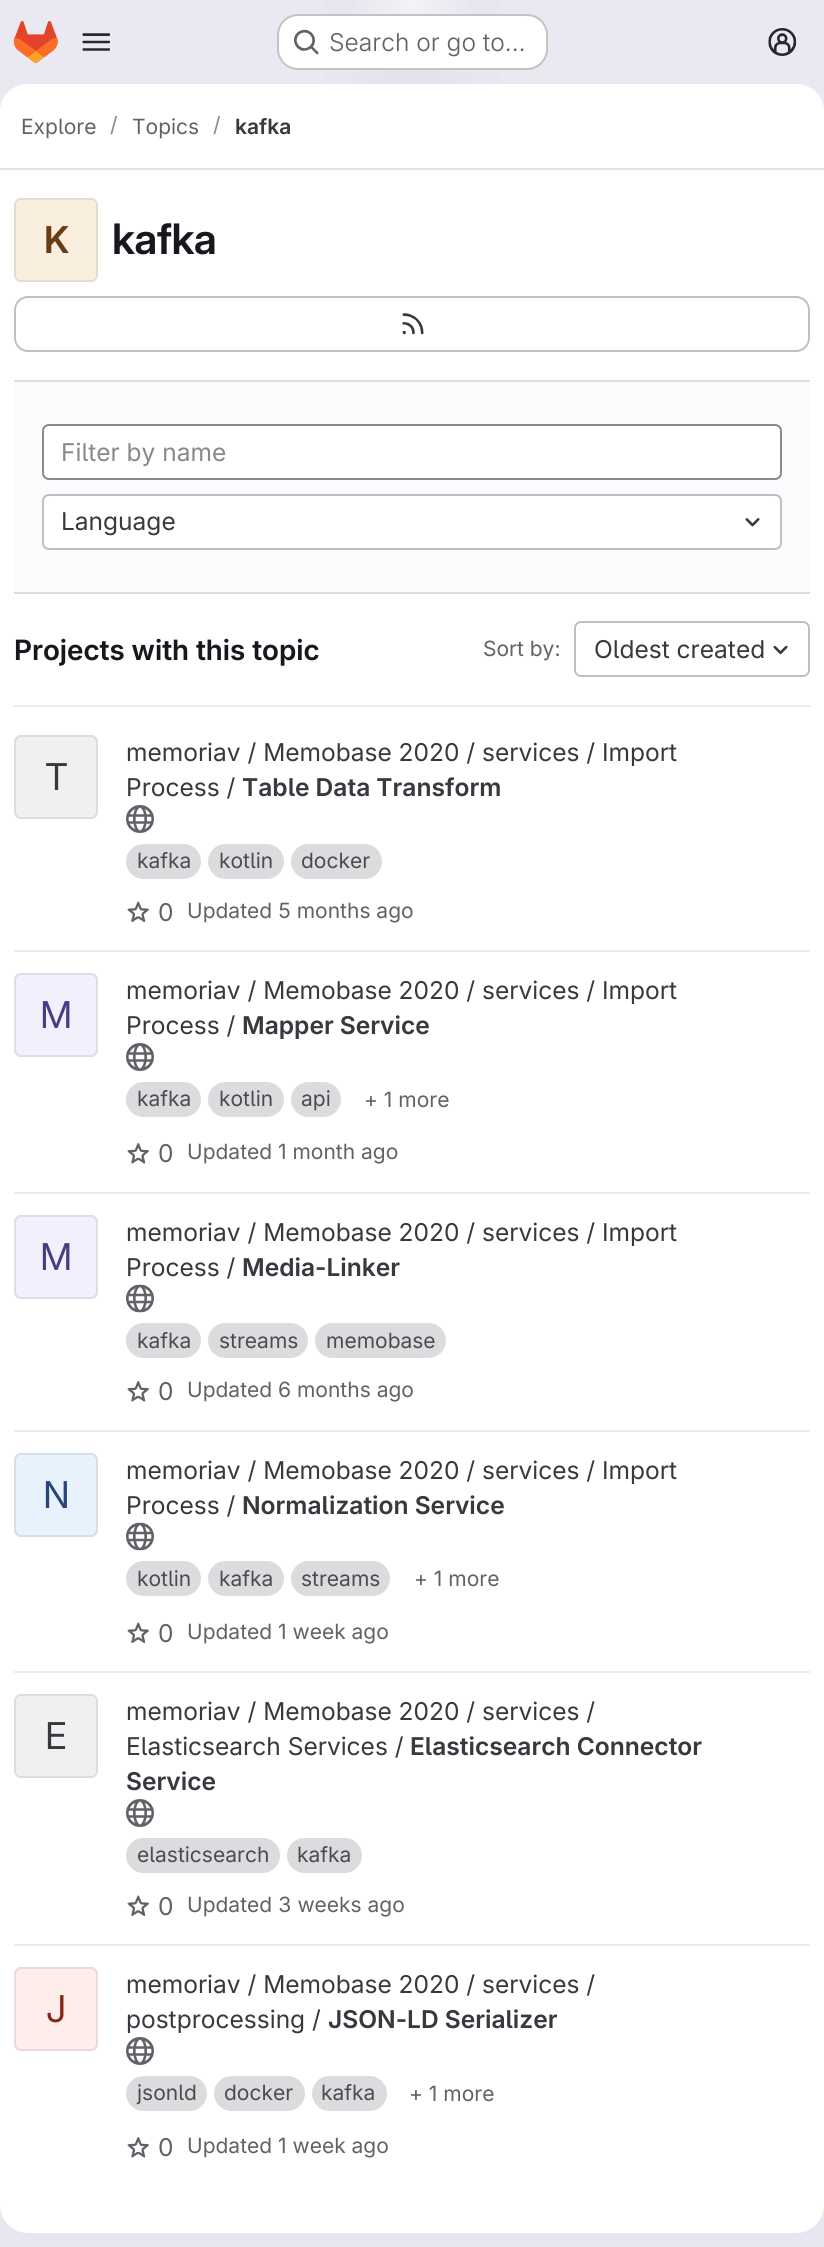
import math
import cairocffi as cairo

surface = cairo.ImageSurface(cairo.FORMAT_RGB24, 824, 2247)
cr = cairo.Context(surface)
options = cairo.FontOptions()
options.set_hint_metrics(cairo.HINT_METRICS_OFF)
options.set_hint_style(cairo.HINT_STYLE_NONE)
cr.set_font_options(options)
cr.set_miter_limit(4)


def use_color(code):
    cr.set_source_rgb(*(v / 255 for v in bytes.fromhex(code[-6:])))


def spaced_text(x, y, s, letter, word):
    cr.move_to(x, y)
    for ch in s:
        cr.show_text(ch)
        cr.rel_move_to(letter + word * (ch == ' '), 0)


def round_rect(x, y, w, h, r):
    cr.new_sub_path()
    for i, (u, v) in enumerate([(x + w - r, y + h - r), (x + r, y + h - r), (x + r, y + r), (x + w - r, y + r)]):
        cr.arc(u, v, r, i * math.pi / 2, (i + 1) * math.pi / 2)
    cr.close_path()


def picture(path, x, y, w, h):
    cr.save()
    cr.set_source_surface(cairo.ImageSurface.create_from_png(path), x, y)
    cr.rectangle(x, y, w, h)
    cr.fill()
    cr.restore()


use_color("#ffffff")
cr.paint()
gradient = cairo.LinearGradient(617, 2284, 208, -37)
gradient.add_color_stop_rgba(0, 0.91, 0.902, 0.941, 1)
gradient.add_color_stop_rgba(0.7, 0.918, 0.914, 0.949, 1)
cr.set_source(gradient)
cr.rectangle(0, 0, 824, 2247)
cr.fill()
gradient = cairo.RadialGradient(0, 0, 0, 0, 0, 1)
gradient.set_matrix(cairo.Matrix(1 / 412, 0, 0, 1 / 2247, -1 * 412 / 412, -1 * 0 / 2247))
gradient.add_color_stop_rgba(0, 0.894, 0.886, 0.929, 1)
gradient.add_color_stop_rgba(0.3, 0.894, 0.886, 0.929, 0)
cr.set_source(gradient)
cr.rectangle(323, 0, 178, 84)
cr.fill()
gradient = cairo.RadialGradient(0, 0, 0, 0, 0, 1)
gradient.set_matrix(cairo.Matrix(1 / 412, 0, 0, 1 / 2247, -1 * 412 / 412, -1 * 0 / 2247))
gradient.add_color_stop_rgba(0, 0.894, 0.886, 0.925, 1)
gradient.add_color_stop_rgba(0.21, 0.894, 0.886, 0.925, 0)
cr.set_source(gradient)
cr.rectangle(389, 3, 46, 76)
cr.fill()
gradient = cairo.RadialGradient(412, 0, 0, 412, 0, 2284)
gradient.add_color_stop_rgba(0, 1, 1, 1, 0.6)
gradient.add_color_stop_rgba(0.03, 1, 1, 1, 0)
cr.set_source(gradient)
cr.rectangle(355, 0, 114, 58)
cr.fill()
picture("img1.png", 14, 21, 44, 42)
picture("img2.png", 82, 33, 29, 18)
use_color("#ffffff")
round_rect(277, 14, 271, 56, 21)
cr.fill()
round_rect(278, 15, 269, 54, 20)
cr.set_source_rgba(0.02, 0.02, 0.024, 0.24)
cr.stroke()
picture("img3.png", 294, 29, 25, 26)
cr.select_font_face("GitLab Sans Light")
cr.set_font_size(24.5)
use_color("#626168")
cr.move_to(329, 51)
cr.show_text("Search or go to…")
picture("img4.png", 768, 28, 29, 28)
use_color("#ffffff")
round_rect(0, 84, 824, 2149, 28)
cr.fill()
cr.new_path()
cr.move_to(28, 84)
cr.line_to(796, 84)
cr.curve_to(811.5, 84, 824, 96.5, 824, 112)
cr.line_to(824, 170)
cr.line_to(0, 170)
cr.line_to(0, 112)
cr.curve_to(0, 96.5, 12.5, 84, 28, 84)
cr.close_path()
cr.fill()
use_color("#e1dfec")
cr.rectangle(0, 168, 824, 2)
cr.fill()
cr.select_font_face("GitLab Sans")
cr.set_font_size(21)
use_color("#626168")
cr.move_to(21, 134)
cr.show_text("Explore")
use_color("#89888d")
cr.move_to(110, 132)
cr.show_text("/")
use_color("#626168")
cr.move_to(132, 134)
cr.show_text("Topics")
use_color("#89888d")
cr.move_to(213, 132)
cr.show_text("/")
cr.select_font_face("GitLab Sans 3 SemiBold")
use_color("#3a383f")
cr.move_to(235, 134)
cr.show_text("kafka")
use_color("#faefde")
round_rect(14, 198, 84, 84, 7)
cr.fill()
round_rect(15, 199, 82, 82, 6)
cr.set_source_rgba(0.02, 0.02, 0.024, 0.08)
cr.stroke()
cr.select_font_face("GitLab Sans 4 SemiBold")
cr.set_font_size(37)
use_color("#693c14")
spaced_text(44, 253, "K", -0.5, 0)
cr.select_font_face("GitLab Sans SemiBold")
cr.set_font_size(42)
use_color("#18171d")
spaced_text(112, 254, "kafka", -0.5, 0)
round_rect(15, 297, 794, 54, 13)
use_color("#bfbfc3")
cr.stroke()
picture("img5.png", 402, 313, 22, 22)
use_color("#fbfafd")
cr.rectangle(14, 382, 796, 210)
cr.fill()
use_color("#dcdcde")
cr.rectangle(14, 380, 796, 2)
cr.fill()
cr.rectangle(14, 592, 796, 2)
cr.fill()
use_color("#ffffff")
round_rect(43, 425, 738, 54, 6)
cr.fill_preserve()
use_color("#89888d")
cr.stroke()
cr.select_font_face("GitLab Sans")
cr.set_font_size(24.5)
cr.move_to(61, 461)
cr.show_text("Filter by name")
use_color("#ffffff")
round_rect(43, 495, 738, 54, 6)
cr.fill_preserve()
use_color("#bfbfc3")
cr.stroke()
use_color("#3a383f")
cr.move_to(61, 530)
cr.show_text("Language")
picture("img6.png", 745, 518, 15, 9)
use_color("#ececef")
cr.rectangle(14, 705, 796, 2)
cr.fill()
cr.select_font_face("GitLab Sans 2 SemiBold")
cr.set_font_size(28)
use_color("#18171d")
cr.move_to(14, 660)
cr.show_text("Projects with this topic")
cr.select_font_face("GitLab Sans")
cr.set_font_size(21)
use_color("#626168")
cr.move_to(483, 656)
cr.show_text("Sort by:")
round_rect(575, 622, 234, 54, 6)
use_color("#bfbfc3")
cr.stroke()
cr.set_font_size(24.5)
use_color("#3a383f")
cr.move_to(594, 658)
cr.show_text("Oldest created")
picture("img7.png", 773, 645, 15, 10)
use_color("#ececef")
cr.rectangle(14, 950, 796, 2)
cr.fill()
use_color("#f0f0f1")
round_rect(14, 735, 84, 84, 7)
cr.fill()
round_rect(15, 736, 82, 82, 6)
cr.set_source_rgba(0.02, 0.02, 0.024, 0.08)
cr.stroke()
cr.select_font_face("GitLab Sans 2")
cr.set_font_size(37)
use_color("#3a383f")
cr.move_to(45, 790)
cr.show_text("T")
cr.select_font_face("GitLab Sans")
cr.set_font_size(24.5)
cr.move_to(126, 761)
cr.show_text("memoriav / Memobase 2020 / services / Import")
cr.move_to(126, 796)
cr.show_text("Process /")
cr.select_font_face("GitLab Sans 3 SemiBold")
cr.move_to(242, 796)
cr.show_text("Table Data Transform")
picture("img8.png", 126, 805, 28, 28)
use_color("#dcdcde")
round_rect(126, 844, 75, 35, 17.5)
cr.fill()
cr.select_font_face("GitLab Sans")
cr.set_font_size(21)
use_color("#4c4b51")
cr.move_to(137, 868)
cr.show_text("kafka")
use_color("#dcdcde")
round_rect(208, 844, 76, 35, 17.5)
cr.fill()
use_color("#4c4b51")
cr.move_to(219, 868)
cr.show_text("kotlin")
use_color("#dcdcde")
round_rect(291, 844, 91, 35, 17.5)
cr.fill()
use_color("#4c4b51")
cr.move_to(301, 868)
cr.show_text("docker")
picture("img9.png", 127, 901, 22, 21)
cr.set_font_size(24.5)
use_color("#626168")
cr.move_to(158, 921)
cr.show_text("0")
cr.set_font_size(21)
cr.move_to(187, 918)
cr.show_text("Updated 5 months ago")
use_color("#ececef")
cr.rectangle(14, 1192, 796, 2)
cr.fill()
use_color("#f3effc")
round_rect(14, 973, 84, 84, 7)
cr.fill()
round_rect(15, 974, 82, 82, 6)
cr.set_source_rgba(0.02, 0.02, 0.024, 0.08)
cr.stroke()
cr.select_font_face("GitLab Sans 2")
cr.set_font_size(37)
use_color("#493c83")
cr.move_to(40, 1028)
cr.show_text("M")
cr.select_font_face("GitLab Sans")
cr.set_font_size(24.5)
use_color("#3a383f")
cr.move_to(126, 999)
cr.show_text("memoriav / Memobase 2020 / services / Import")
cr.move_to(126, 1034)
cr.show_text("Process /")
cr.select_font_face("GitLab Sans 3 SemiBold")
cr.move_to(242, 1034)
cr.show_text("Mapper Service")
picture("img8.png", 126, 1043, 28, 28)
use_color("#dcdcde")
round_rect(126, 1082, 75, 35, 17.5)
cr.fill()
cr.select_font_face("GitLab Sans")
cr.set_font_size(21)
use_color("#4c4b51")
cr.move_to(137, 1106)
cr.show_text("kafka")
use_color("#dcdcde")
round_rect(208, 1082, 76, 35, 17.5)
cr.fill()
use_color("#4c4b51")
cr.move_to(219, 1106)
cr.show_text("kotlin")
use_color("#dcdcde")
round_rect(291, 1082, 50, 35, 17.5)
cr.fill()
use_color("#4c4b51")
cr.move_to(301, 1106)
cr.show_text("api")
use_color("#626168")
cr.move_to(364, 1107)
cr.show_text("+ 1 more")
picture("img10.png", 127, 1143, 22, 21)
cr.set_font_size(24.5)
cr.move_to(158, 1162)
cr.show_text("0")
cr.set_font_size(21)
cr.move_to(187, 1159)
cr.show_text("Updated 1 month ago")
use_color("#ececef")
cr.rectangle(14, 1430, 796, 2)
cr.fill()
use_color("#f3effc")
round_rect(14, 1215, 84, 84, 7)
cr.fill()
round_rect(15, 1216, 82, 82, 6)
cr.set_source_rgba(0.02, 0.02, 0.024, 0.08)
cr.stroke()
cr.select_font_face("GitLab Sans 2")
cr.set_font_size(37)
use_color("#493c83")
cr.move_to(40, 1270)
cr.show_text("M")
cr.select_font_face("GitLab Sans")
cr.set_font_size(24.5)
use_color("#3a383f")
cr.move_to(126, 1241)
cr.show_text("memoriav / Memobase 2020 / services / Import")
cr.move_to(126, 1276)
cr.show_text("Process /")
cr.select_font_face("GitLab Sans 3 SemiBold")
cr.move_to(242, 1276)
cr.show_text("Media-Linker")
picture("img11.png", 126, 1284, 28, 29)
use_color("#dcdcde")
round_rect(126, 1323, 75, 35, 17.5)
cr.fill()
cr.select_font_face("GitLab Sans")
cr.set_font_size(21)
use_color("#4c4b51")
cr.move_to(137, 1348)
cr.show_text("kafka")
use_color("#dcdcde")
round_rect(208, 1323, 100, 35, 17.5)
cr.fill()
use_color("#4c4b51")
cr.move_to(219, 1348)
cr.show_text("streams")
use_color("#dcdcde")
round_rect(315, 1323, 131, 35, 17.5)
cr.fill()
use_color("#4c4b51")
cr.move_to(326, 1348)
cr.show_text("memobase")
picture("img10.png", 127, 1381, 22, 21)
cr.set_font_size(24.5)
use_color("#626168")
cr.move_to(158, 1400)
cr.show_text("0")
cr.set_font_size(21)
cr.move_to(187, 1397)
cr.show_text("Updated 6 months ago")
use_color("#ececef")
cr.rectangle(14, 1671, 796, 2)
cr.fill()
use_color("#e7f2fc")
round_rect(14, 1453, 84, 84, 7)
cr.fill()
round_rect(15, 1454, 82, 82, 6)
cr.set_source_rgba(0.02, 0.02, 0.024, 0.08)
cr.stroke()
cr.select_font_face("GitLab Sans 2")
cr.set_font_size(37)
use_color("#284779")
cr.move_to(43, 1508)
cr.show_text("N")
cr.select_font_face("GitLab Sans")
cr.set_font_size(24.5)
use_color("#3a383f")
cr.move_to(126, 1479)
cr.show_text("memoriav / Memobase 2020 / services / Import")
cr.move_to(126, 1514)
cr.show_text("Process /")
cr.select_font_face("GitLab Sans 3 SemiBold")
cr.move_to(242, 1514)
cr.show_text("Normalization Service")
picture("img12.png", 126, 1522, 28, 29)
use_color("#dcdcde")
round_rect(126, 1561, 75, 35, 17.5)
cr.fill()
cr.select_font_face("GitLab Sans")
cr.set_font_size(21)
use_color("#4c4b51")
cr.move_to(137, 1586)
cr.show_text("kotlin")
use_color("#dcdcde")
round_rect(208, 1561, 76, 35, 17.5)
cr.fill()
use_color("#4c4b51")
cr.move_to(219, 1586)
cr.show_text("kafka")
use_color("#dcdcde")
round_rect(291, 1561, 99, 35, 17.5)
cr.fill()
use_color("#4c4b51")
cr.move_to(301, 1586)
cr.show_text("streams")
use_color("#626168")
cr.move_to(414, 1586)
cr.show_text("+ 1 more")
picture("img9.png", 127, 1622, 22, 21)
cr.set_font_size(24.5)
cr.move_to(158, 1642)
cr.show_text("0")
cr.set_font_size(21)
cr.move_to(187, 1639)
cr.show_text("Updated 1 week ago")
use_color("#ececef")
cr.rectangle(14, 1944, 796, 2)
cr.fill()
use_color("#f0f0f1")
round_rect(14, 1694, 84, 84, 7)
cr.fill()
round_rect(15, 1695, 82, 82, 6)
cr.set_source_rgba(0.02, 0.02, 0.024, 0.08)
cr.stroke()
cr.select_font_face("GitLab Sans 2")
cr.set_font_size(37)
use_color("#3a383f")
cr.move_to(45, 1749)
cr.show_text("E")
cr.select_font_face("GitLab Sans")
cr.set_font_size(24.5)
cr.move_to(126, 1720)
cr.show_text("memoriav / Memobase 2020 / services /")
cr.move_to(126, 1755)
cr.show_text("Elasticsearch Services /")
cr.select_font_face("GitLab Sans 3 SemiBold")
cr.move_to(410, 1755)
cr.show_text("Elasticsearch Connector")
cr.move_to(126, 1790)
cr.show_text("Service")
picture("img8.png", 126, 1799, 28, 28)
use_color("#dcdcde")
round_rect(126, 1838, 154, 35, 17.5)
cr.fill()
cr.select_font_face("GitLab Sans")
cr.set_font_size(21)
use_color("#4c4b51")
cr.move_to(137, 1862)
cr.show_text("elasticsearch")
use_color("#dcdcde")
round_rect(287, 1838, 75, 35, 17.5)
cr.fill()
use_color("#4c4b51")
cr.move_to(297, 1862)
cr.show_text("kafka")
picture("img9.png", 127, 1895, 22, 21)
cr.set_font_size(24.5)
use_color("#626168")
cr.move_to(158, 1915)
cr.show_text("0")
cr.set_font_size(21)
cr.move_to(187, 1912)
cr.show_text("Updated 3 weeks ago")
use_color("#feedeb")
round_rect(14, 1967, 84, 84, 7)
cr.fill()
round_rect(15, 1968, 82, 82, 6)
cr.set_source_rgba(0.02, 0.02, 0.024, 0.08)
cr.stroke()
cr.select_font_face("GitLab Sans 2")
cr.set_font_size(37)
use_color("#812713")
cr.move_to(46, 2022)
cr.show_text("J")
cr.select_font_face("GitLab Sans")
cr.set_font_size(24.5)
use_color("#3a383f")
cr.move_to(126, 1993)
cr.show_text("memoriav / Memobase 2020 / services /")
cr.move_to(126, 2028)
cr.show_text("postprocessing /")
cr.select_font_face("GitLab Sans 3 SemiBold")
cr.move_to(328, 2028)
cr.show_text("JSON-LD Serializer")
picture("img13.png", 126, 2037, 28, 28)
use_color("#dcdcde")
round_rect(126, 2076, 81, 35, 17.5)
cr.fill()
cr.select_font_face("GitLab Sans")
cr.set_font_size(21)
use_color("#4c4b51")
cr.move_to(137, 2100)
cr.show_text("jsonld")
use_color("#dcdcde")
round_rect(214, 2076, 91, 35, 17.5)
cr.fill()
use_color("#4c4b51")
cr.move_to(224, 2100)
cr.show_text("docker")
use_color("#dcdcde")
round_rect(312, 2076, 75, 35, 17.5)
cr.fill()
use_color("#4c4b51")
cr.move_to(321, 2100)
cr.show_text("kafka")
use_color("#626168")
cr.move_to(409, 2101)
cr.show_text("+ 1 more")
picture("img10.png", 127, 2137, 22, 21)
cr.set_font_size(24.5)
cr.move_to(158, 2156)
cr.show_text("0")
cr.set_font_size(21)
cr.move_to(187, 2153)
cr.show_text("Updated 1 week ago")
surface.write_to_png("result.png")
